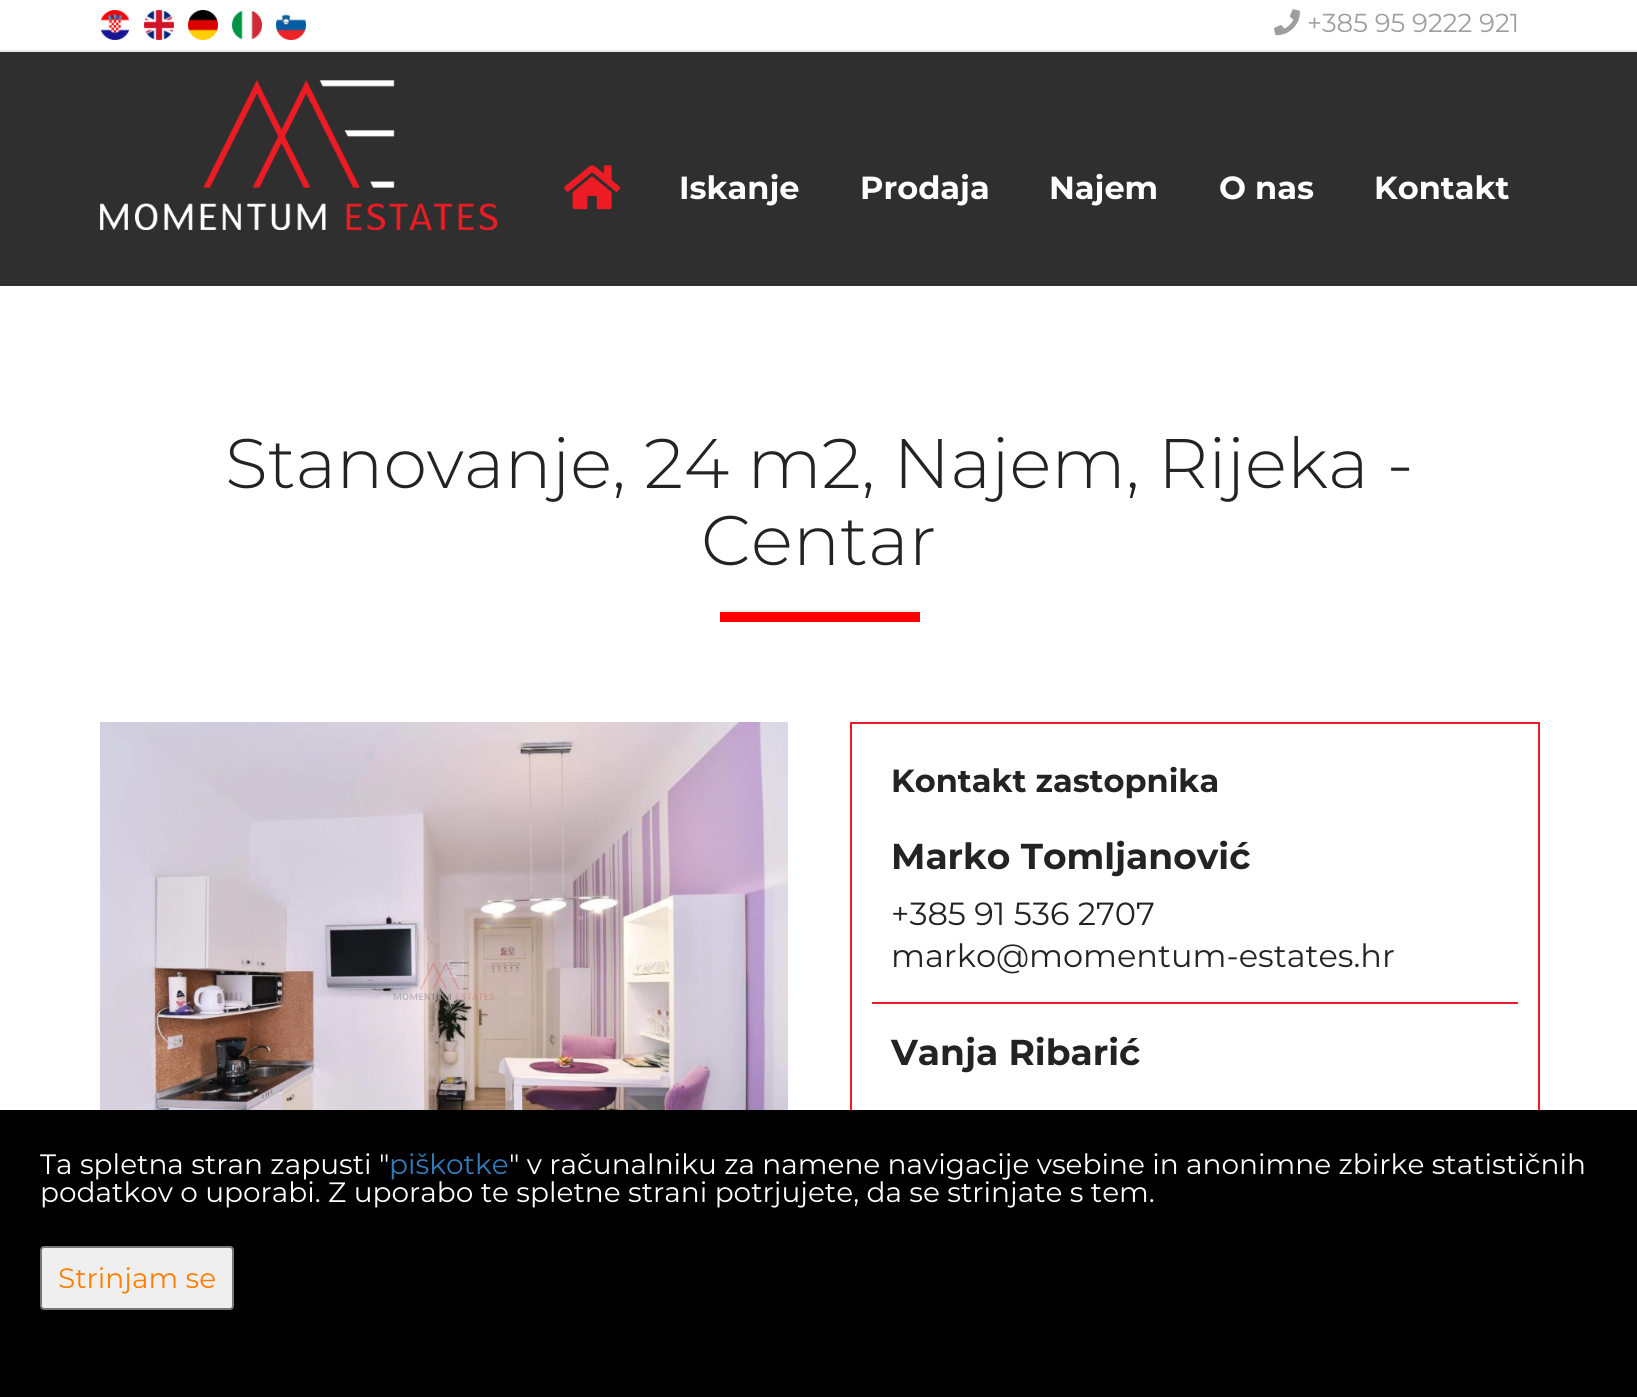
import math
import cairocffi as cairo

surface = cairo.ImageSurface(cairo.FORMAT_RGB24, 1637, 1397)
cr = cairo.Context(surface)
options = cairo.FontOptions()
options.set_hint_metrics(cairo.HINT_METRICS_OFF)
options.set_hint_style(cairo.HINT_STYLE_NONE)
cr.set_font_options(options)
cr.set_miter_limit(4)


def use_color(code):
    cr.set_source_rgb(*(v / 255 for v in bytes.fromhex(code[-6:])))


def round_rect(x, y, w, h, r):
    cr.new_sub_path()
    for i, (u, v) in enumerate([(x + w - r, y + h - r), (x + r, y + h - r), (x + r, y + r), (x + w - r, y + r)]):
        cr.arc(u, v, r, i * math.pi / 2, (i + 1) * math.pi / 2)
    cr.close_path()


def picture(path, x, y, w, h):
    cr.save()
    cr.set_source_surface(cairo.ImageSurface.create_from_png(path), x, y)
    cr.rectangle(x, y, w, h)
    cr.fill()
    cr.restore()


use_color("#ffffff")
cr.paint()
use_color("#e7e7e7")
cr.rectangle(0, 50, 1637, 2)
cr.fill()
picture("img1.png", 100, 10, 30, 30)
picture("img2.png", 144, 10, 30, 30)
picture("img3.png", 188, 10, 30, 30)
picture("img4.png", 232, 11, 30, 29)
picture("img5.png", 276, 14, 30, 26)
picture("img6.png", 1274, 9, 26, 27)
cr.select_font_face("Montserrat")
cr.set_font_size(26)
use_color("#9e9e9e")
cr.move_to(1307, 32)
cr.show_text("+385 95 9222 921")
use_color("#2f2f2f")
cr.rectangle(0, 52, 1637, 234)
cr.fill()
picture("img7.png", 100, 80, 398, 150)
picture("img8.png", 564, 165, 57, 45)
cr.select_font_face("Montserrat", cairo.FONT_SLANT_NORMAL, cairo.FONT_WEIGHT_BOLD)
cr.set_font_size(32)
use_color("#ffffff")
cr.move_to(679, 199)
cr.show_text("Iskanje")
cr.move_to(860, 199)
cr.show_text("Prodaja")
cr.move_to(1049, 199)
cr.show_text("Najem")
cr.move_to(1219, 199)
cr.show_text("O nas")
cr.move_to(1374, 199)
cr.show_text("Kontakt")
cr.select_font_face("Montserrat Light")
cr.set_font_size(70)
use_color("#232323")
cr.move_to(225, 488)
cr.show_text("Stanovanje, 24 m2, Najem, Rijeka -")
cr.move_to(701, 565)
cr.show_text("Centar")
use_color("#ff0000")
cr.rectangle(720, 612, 200, 10)
cr.fill()
use_color("#eeeeee")
cr.rectangle(720, 610, 200, 2)
cr.fill()
picture("img9.png", 100, 722, 688, 388)
cr.rectangle(851, 723, 688, 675)
use_color("#ed1c24")
cr.stroke()
cr.select_font_face("Montserrat", cairo.FONT_SLANT_NORMAL, cairo.FONT_WEIGHT_BOLD)
cr.set_font_size(32)
use_color("#232323")
cr.move_to(891, 792)
cr.show_text("Kontakt zastopnika")
use_color("#ed1c24")
cr.rectangle(872, 1002, 646, 2)
cr.fill()
cr.set_font_size(36)
use_color("#232323")
cr.move_to(891, 869)
cr.show_text("Marko Tomljanović")
cr.select_font_face("Montserrat")
cr.set_font_size(32)
cr.move_to(891, 925)
cr.show_text("+385 91 536 2707")
cr.move_to(891, 967)
cr.show_text("marko@momentum-estates.hr")
cr.select_font_face("Montserrat", cairo.FONT_SLANT_NORMAL, cairo.FONT_WEIGHT_BOLD)
cr.set_font_size(36)
cr.move_to(891, 1065)
cr.show_text("Vanja Ribarić")
use_color("#000000")
cr.rectangle(0, 1110, 1637, 287)
cr.fill()
cr.select_font_face("Montserrat")
cr.set_font_size(28)
use_color("#ffffff")
cr.move_to(40, 1174)
cr.show_text("Ta spletna stran zapusti \"")
use_color("#337ab7")
cr.move_to(389, 1174)
cr.show_text("piškotke")
use_color("#ffffff")
cr.move_to(509, 1174)
cr.show_text("\" v računalniku za namene navigacije vsebine in anonimne zbirke statističnih")
cr.move_to(40, 1202)
cr.show_text("podatkov o uporabi. Z uporabo te spletne strani potrjujete, da se strinjate s tem.")
use_color("#efefef")
round_rect(41, 1247, 192, 62, 3)
cr.fill_preserve()
use_color("#767676")
cr.stroke()
use_color("#ff7e00")
cr.move_to(58, 1288)
cr.show_text("Strinjam se")
surface.write_to_png("result.png")
